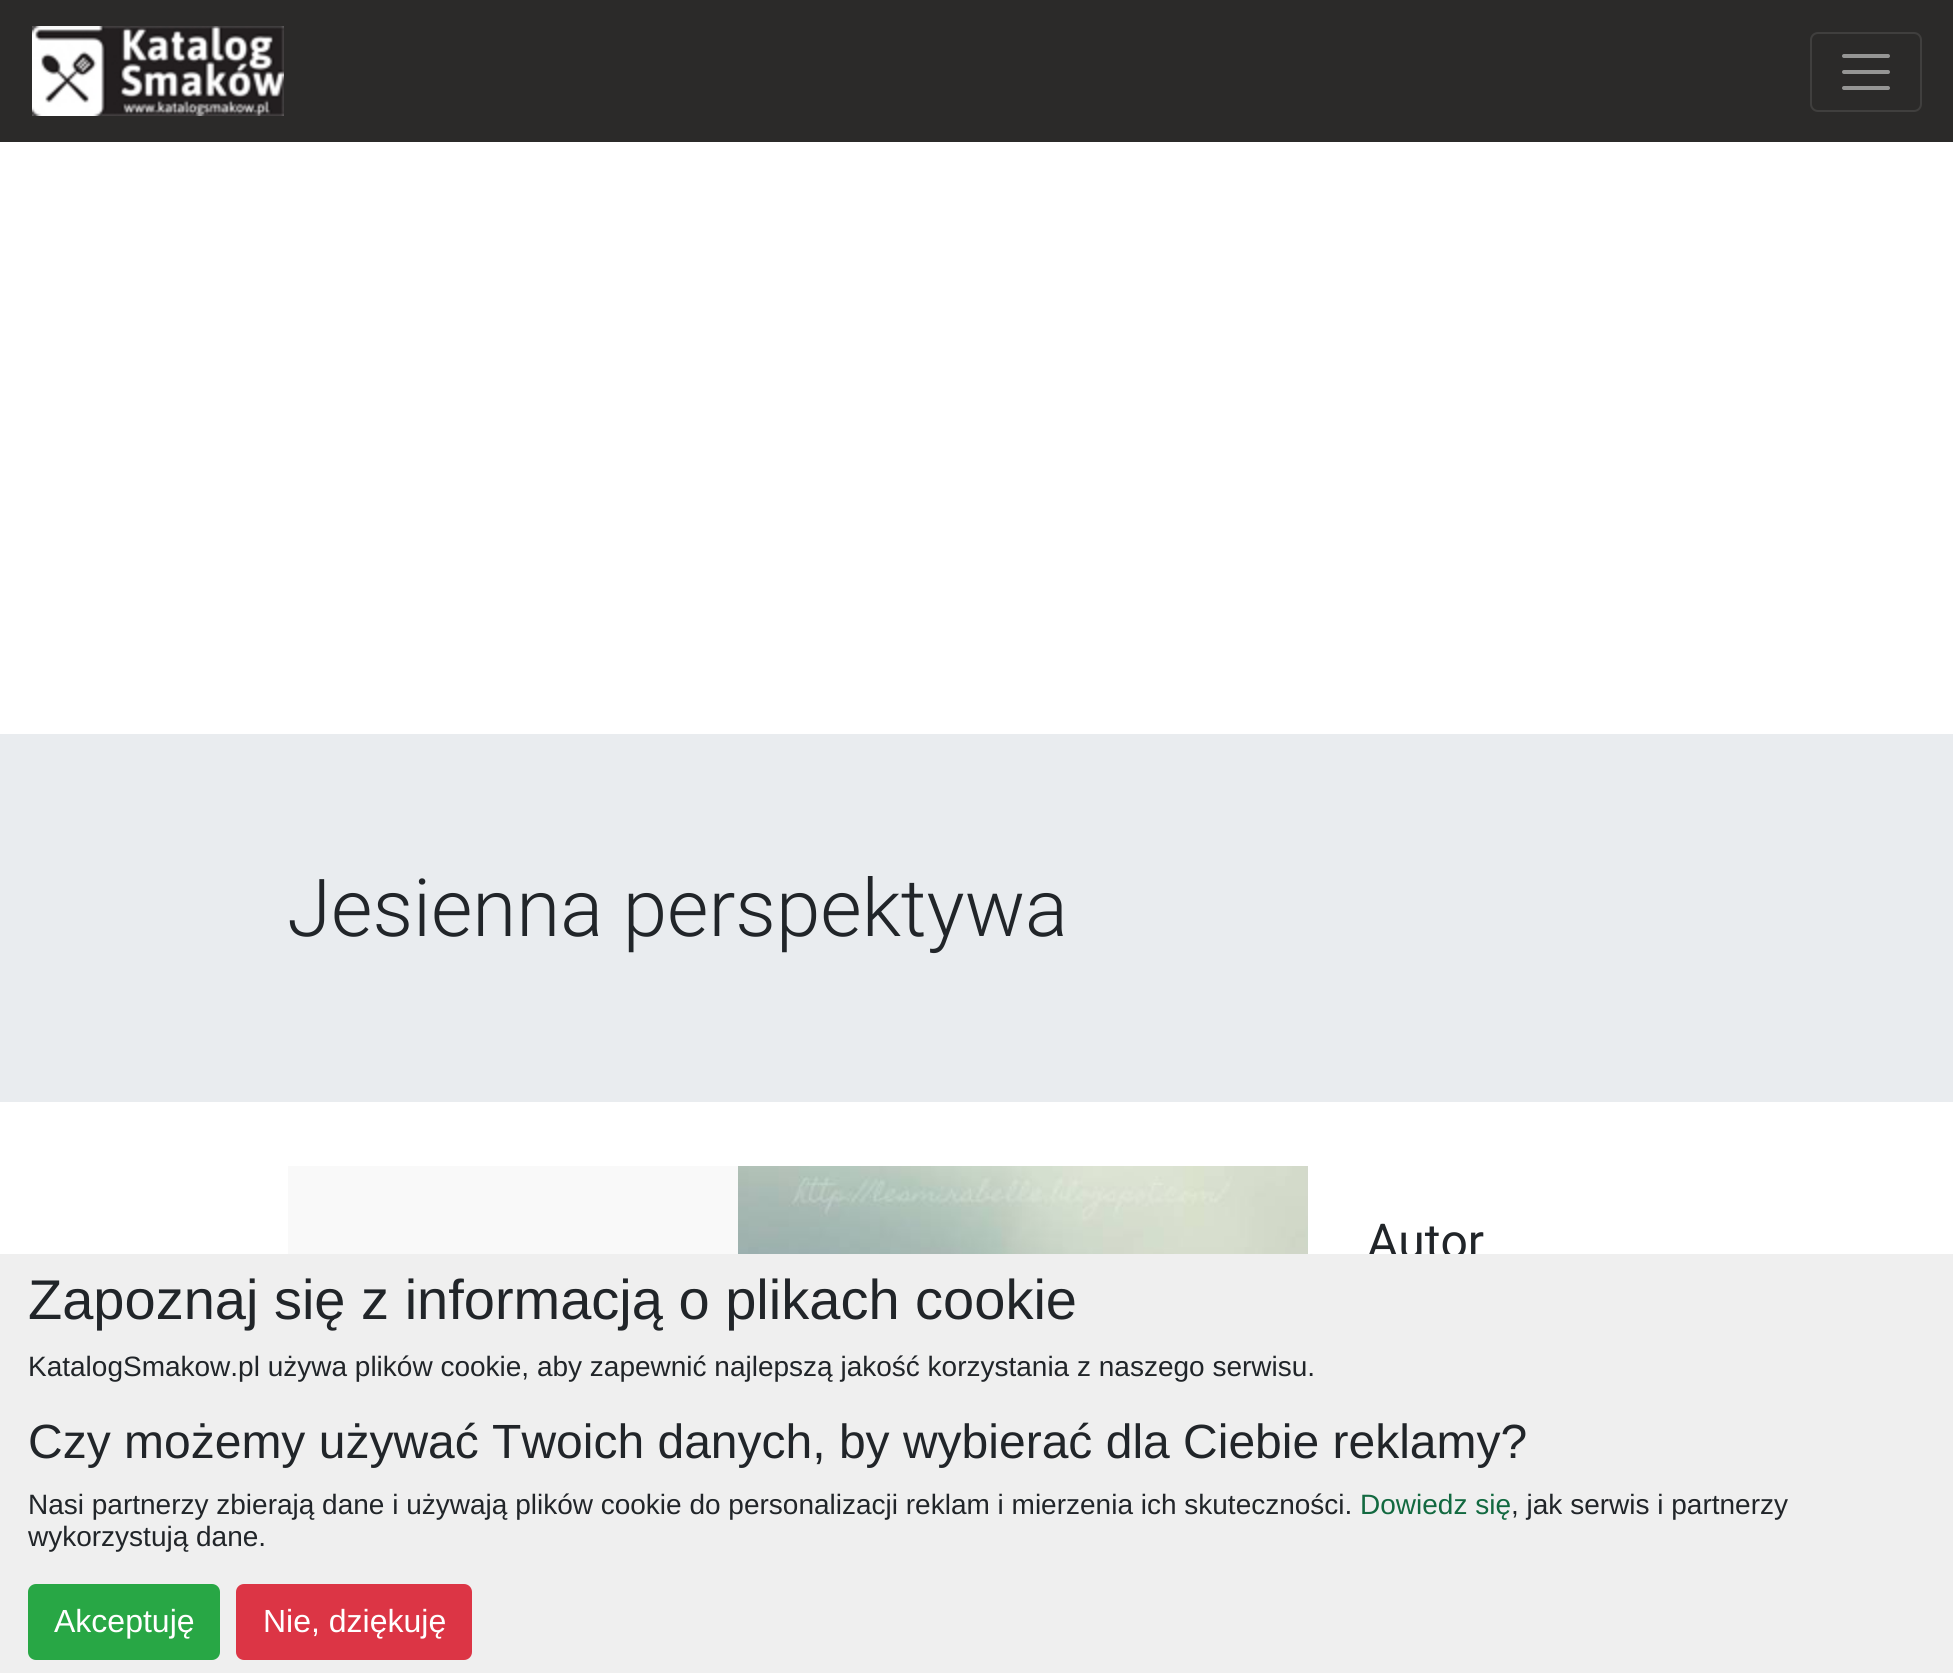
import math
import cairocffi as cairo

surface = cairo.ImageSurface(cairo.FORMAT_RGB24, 1953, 1673)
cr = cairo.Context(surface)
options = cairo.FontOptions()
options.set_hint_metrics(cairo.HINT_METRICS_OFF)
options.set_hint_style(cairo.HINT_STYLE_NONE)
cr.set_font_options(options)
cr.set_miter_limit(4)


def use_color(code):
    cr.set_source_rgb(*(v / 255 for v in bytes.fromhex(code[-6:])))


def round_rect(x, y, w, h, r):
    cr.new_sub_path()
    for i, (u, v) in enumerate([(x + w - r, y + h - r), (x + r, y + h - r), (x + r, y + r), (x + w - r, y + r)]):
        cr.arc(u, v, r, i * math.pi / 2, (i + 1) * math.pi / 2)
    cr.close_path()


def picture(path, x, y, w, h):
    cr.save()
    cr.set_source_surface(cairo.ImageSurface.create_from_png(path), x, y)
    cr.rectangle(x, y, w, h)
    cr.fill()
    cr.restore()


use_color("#ffffff")
cr.paint()
use_color("#2b2a29")
cr.rectangle(0, 0, 1953, 142)
cr.fill()
picture("img1.png", 32, 26, 252, 90)
round_rect(1811, 33, 110, 78, 7)
use_color("#403f3e")
cr.stroke()
cr.new_path()
cr.move_to(1844, 56)
cr.line_to(1888, 56)
cr.move_to(1844, 72)
cr.line_to(1888, 72)
cr.move_to(1844, 88)
cr.line_to(1888, 88)
use_color("#959594")
cr.set_line_width(4)
cr.set_line_cap(cairo.LINE_CAP_ROUND)
cr.stroke()
use_color("#e9ecef")
cr.rectangle(0, 734, 1953, 368)
cr.fill()
cr.select_font_face("Roboto Light")
cr.set_font_size(80)
use_color("#212529")
cr.move_to(287, 936)
cr.show_text("Jesienna perspektywa")
use_color("#f9f9f9")
cr.rectangle(288, 1166, 450, 88)
cr.fill()
picture("img2.png", 738, 1166, 570, 88)
cr.select_font_face("Roboto")
cr.set_font_size(48)
use_color("#212529")
cr.move_to(1367, 1258)
cr.show_text("Autor")
use_color("#efefef")
cr.rectangle(0, 1254, 1953, 419)
cr.fill()
cr.select_font_face("Liberation Sans")
cr.set_font_size(56)
use_color("#212529")
cr.move_to(28, 1319)
cr.show_text("Zapoznaj się z informacją o plikach cookie")
cr.set_font_size(28)
cr.move_to(28, 1376)
cr.show_text("KatalogSmakow.pl używa plików cookie, aby zapewnić najlepszą jakość korzystania z naszego serwisu.")
cr.set_font_size(48)
cr.move_to(28, 1458)
cr.show_text("Czy możemy używać Twoich danych, by wybierać dla Ciebie reklamy?")
cr.set_font_size(28)
cr.move_to(28, 1514)
cr.show_text("Nasi partnerzy zbierają dane i używają plików cookie do personalizacji reklam i mierzenia ich skuteczności.")
use_color("#126940")
cr.move_to(1360, 1514)
cr.show_text("Dowiedz się")
use_color("#212529")
cr.move_to(1511, 1514)
cr.show_text(", jak serwis i partnerzy")
cr.move_to(28, 1546)
cr.show_text("wykorzystują dane.")
use_color("#28a745")
round_rect(29, 1585, 190, 74, 7)
cr.fill_preserve()
cr.set_line_width(2)
cr.set_line_cap(cairo.LINE_CAP_BUTT)
cr.stroke()
cr.set_font_size(32)
use_color("#ffffff")
cr.move_to(54, 1632)
cr.show_text("Akceptuję")
use_color("#dc3545")
round_rect(237, 1585, 234, 74, 7)
cr.fill_preserve()
cr.stroke()
use_color("#ffffff")
cr.move_to(263, 1632)
cr.show_text("Nie, dziękuję")
surface.write_to_png("result.png")
